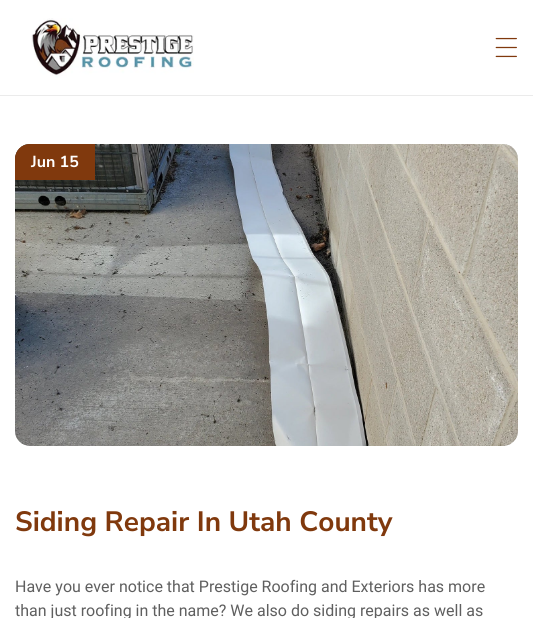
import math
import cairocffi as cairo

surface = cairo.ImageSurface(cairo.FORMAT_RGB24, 533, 618)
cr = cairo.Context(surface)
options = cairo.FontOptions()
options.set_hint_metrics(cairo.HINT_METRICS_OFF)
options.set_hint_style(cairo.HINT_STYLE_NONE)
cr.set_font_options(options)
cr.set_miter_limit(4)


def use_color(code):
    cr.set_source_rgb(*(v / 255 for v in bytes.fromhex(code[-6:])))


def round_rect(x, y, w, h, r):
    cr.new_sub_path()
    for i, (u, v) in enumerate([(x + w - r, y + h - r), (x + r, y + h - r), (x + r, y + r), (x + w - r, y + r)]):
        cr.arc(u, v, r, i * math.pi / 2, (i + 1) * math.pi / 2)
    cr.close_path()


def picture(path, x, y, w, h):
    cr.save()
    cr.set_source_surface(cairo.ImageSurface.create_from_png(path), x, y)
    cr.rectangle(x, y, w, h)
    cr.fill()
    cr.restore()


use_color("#ffffff")
cr.paint()
use_color("#ebebeb")
cr.rectangle(0, 95, 533, 1)
cr.fill()
picture("img1.png", 31, 18, 163, 60)
picture("img2.png", 495, 37, 22, 21)
use_color("#e6e6e6")
round_rect(15, 144, 503, 302, 15)
cr.fill()
picture("img3.png", 15, 144, 503, 302)
use_color("#80390d")
cr.new_path()
cr.move_to(30, 144)
cr.line_to(95, 144)
cr.line_to(95, 180)
cr.line_to(15, 180)
cr.line_to(15, 159)
cr.curve_to(15, 150.5, 21.5, 144, 30, 144)
cr.close_path()
cr.fill()
cr.select_font_face("Nunito Sans", cairo.FONT_SLANT_NORMAL, cairo.FONT_WEIGHT_BOLD)
cr.set_font_size(16)
use_color("#ffffff")
cr.move_to(31, 167)
cr.show_text("Jun 15")
cr.set_font_size(28)
use_color("#80390d")
cr.move_to(15, 531)
cr.show_text("Siding Repair In Utah County")
cr.select_font_face("Roboto")
cr.set_font_size(16)
use_color("#5f5f5f")
cr.move_to(15, 592)
cr.show_text("Have you ever notice that Prestige Roofing and Exteriors has more")
cr.move_to(15, 616)
cr.show_text("than just roofing in the name? We also do siding repairs as well as")
surface.write_to_png("result.png")
